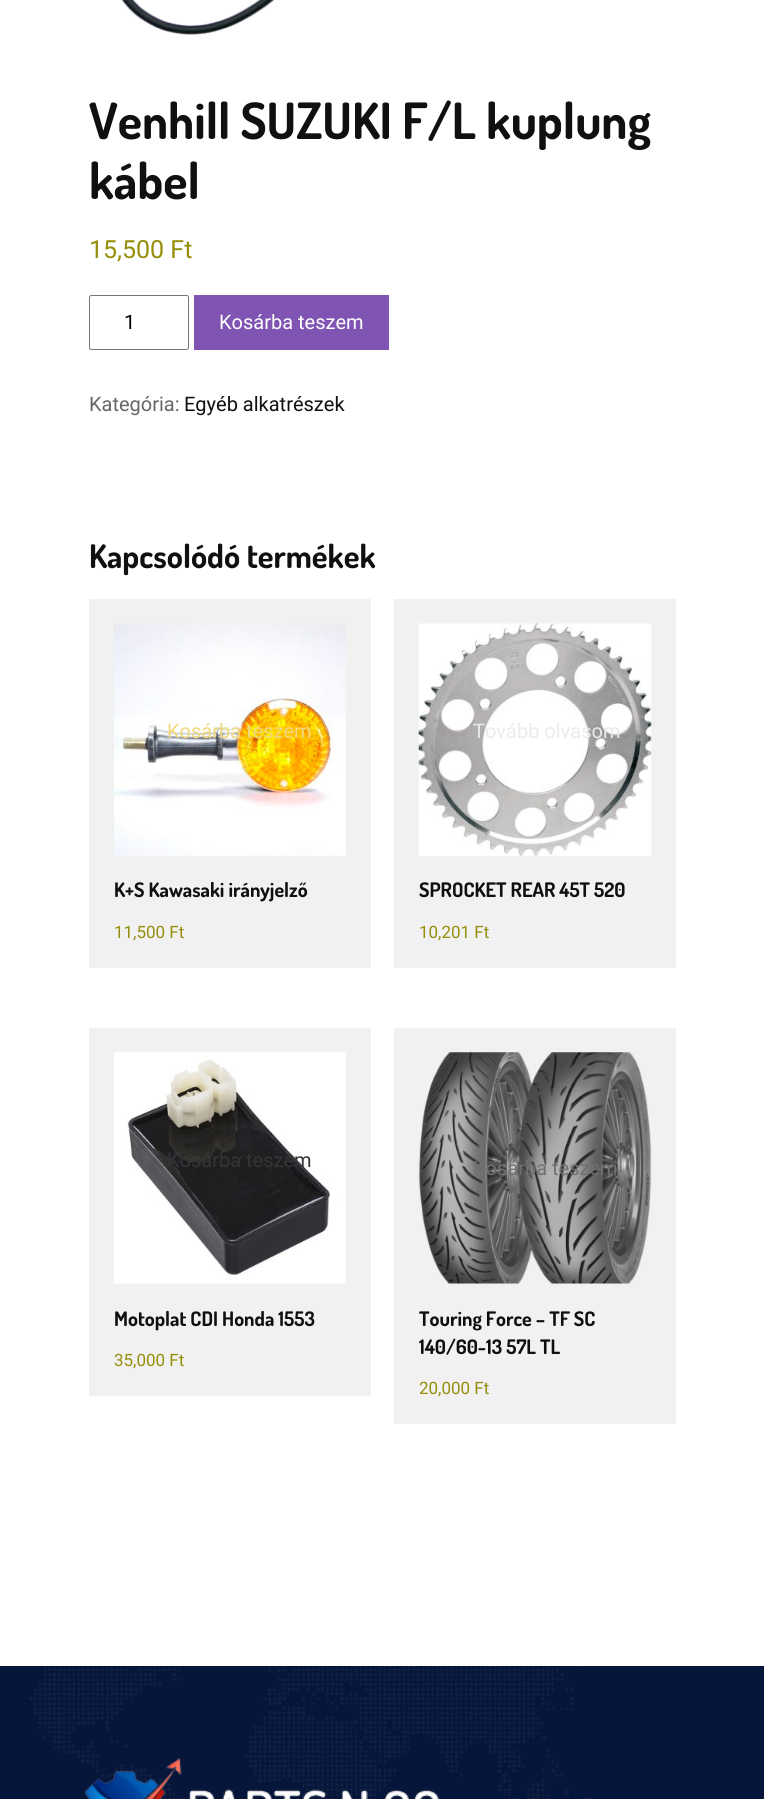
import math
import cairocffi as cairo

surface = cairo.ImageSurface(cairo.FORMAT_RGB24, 764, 1799)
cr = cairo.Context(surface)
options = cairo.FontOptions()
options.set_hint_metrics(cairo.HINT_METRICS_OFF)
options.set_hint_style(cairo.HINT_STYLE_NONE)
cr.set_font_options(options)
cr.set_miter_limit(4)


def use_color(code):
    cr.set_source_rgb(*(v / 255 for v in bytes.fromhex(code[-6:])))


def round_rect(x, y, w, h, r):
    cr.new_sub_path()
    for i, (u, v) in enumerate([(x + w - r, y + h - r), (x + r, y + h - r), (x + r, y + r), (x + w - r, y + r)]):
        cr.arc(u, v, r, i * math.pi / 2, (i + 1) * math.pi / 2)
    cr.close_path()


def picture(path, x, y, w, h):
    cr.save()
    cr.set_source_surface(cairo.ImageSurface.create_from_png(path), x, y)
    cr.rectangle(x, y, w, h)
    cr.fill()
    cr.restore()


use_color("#ffffff")
cr.paint()
picture("img1.png", 121, 0, 154, 35)
cr.select_font_face("Dosis", cairo.FONT_SLANT_NORMAL, cairo.FONT_WEIGHT_BOLD)
cr.set_font_size(50)
use_color("#101010")
cr.move_to(89, 139)
cr.show_text("Venhill SUZUKI F/L kuplung")
cr.move_to(89, 199)
cr.show_text("kábel")
cr.select_font_face("Roboto")
cr.set_font_size(25)
use_color("#958e09")
cr.move_to(89, 258)
cr.show_text("15,500 Ft")
round_rect(89.5, 295.5, 99, 54, 2)
use_color("#767676")
cr.set_line_width(1)
cr.stroke()
cr.set_font_size(20)
use_color("#000000")
cr.move_to(124, 329)
cr.show_text("1")
use_color("#7f54b3")
cr.rectangle(194, 295, 195, 55)
cr.fill()
use_color("#ffffff")
cr.move_to(219, 329)
cr.show_text("Kosárba teszem")
use_color("#666666")
cr.move_to(89, 411)
cr.show_text("Kategória:")
use_color("#101010")
cr.move_to(184, 411)
cr.show_text("Egyéb alkatrészek")
cr.select_font_face("Dosis", cairo.FONT_SLANT_NORMAL, cairo.FONT_WEIGHT_BOLD)
cr.set_font_size(32.5)
cr.move_to(89, 568)
cr.show_text("Kapcsolódó termékek")
use_color("#f1f1f1")
cr.rectangle(89, 599, 282, 369)
cr.fill()
picture("img2.png", 114, 623, 232, 233)
cr.select_font_face("Roboto")
cr.set_font_size(20)
use_color("#f0d87e")
cr.move_to(167, 738)
cr.show_text("Kosárba teszem")
cr.select_font_face("Dosis", cairo.FONT_SLANT_NORMAL, cairo.FONT_WEIGHT_BOLD)
use_color("#101010")
cr.move_to(114, 897)
cr.show_text("K+S Kawasaki irányjelző")
cr.select_font_face("Roboto")
cr.set_font_size(17)
use_color("#958e09")
cr.move_to(114, 938)
cr.show_text("11,500 Ft")
use_color("#f1f1f1")
cr.rectangle(394, 599, 282, 369)
cr.fill()
picture("img3.png", 418, 623, 234, 233)
cr.set_font_size(20)
use_color("#ebebeb")
cr.move_to(473, 738)
cr.show_text("Tovább olvasom")
cr.select_font_face("Dosis", cairo.FONT_SLANT_NORMAL, cairo.FONT_WEIGHT_BOLD)
use_color("#101010")
cr.move_to(419, 897)
cr.show_text("SPROCKET REAR 45T 520")
cr.select_font_face("Roboto")
cr.set_font_size(17)
use_color("#958e09")
cr.move_to(419, 938)
cr.show_text("10,201 Ft")
use_color("#f1f1f1")
cr.rectangle(89, 1028, 282, 368)
cr.fill()
picture("img4.png", 114, 1052, 232, 232)
cr.set_font_size(20)
use_color("#353436")
cr.move_to(167, 1167)
cr.show_text("Kosárba teszem")
cr.select_font_face("Dosis", cairo.FONT_SLANT_NORMAL, cairo.FONT_WEIGHT_BOLD)
use_color("#101010")
cr.move_to(114, 1326)
cr.show_text("Motoplat CDI Honda 1553")
cr.select_font_face("Roboto")
cr.set_font_size(17)
use_color("#958e09")
cr.move_to(114, 1366)
cr.show_text("35,000 Ft")
use_color("#f1f1f1")
cr.rectangle(394, 1028, 282, 396)
cr.fill()
picture("img5.png", 418, 1052, 234, 232)
cr.set_font_size(20)
use_color("#707070")
cr.move_to(473, 1175)
cr.show_text("Kosárba teszem")
cr.select_font_face("Dosis", cairo.FONT_SLANT_NORMAL, cairo.FONT_WEIGHT_BOLD)
use_color("#101010")
cr.move_to(419, 1326)
cr.show_text("Touring Force – TF SC")
cr.move_to(419, 1354)
cr.show_text("140/60-13 57L TL")
cr.select_font_face("Roboto")
cr.set_font_size(17)
use_color("#958e09")
cr.move_to(419, 1394)
cr.show_text("20,000 Ft")
use_color("#06163a")
cr.rectangle(0, 1666, 764, 133)
cr.fill()
picture("img6.png", 29, 1666, 563, 133)
picture("img7.png", 84, 1758, 355, 41)
surface.write_to_png("result.png")
